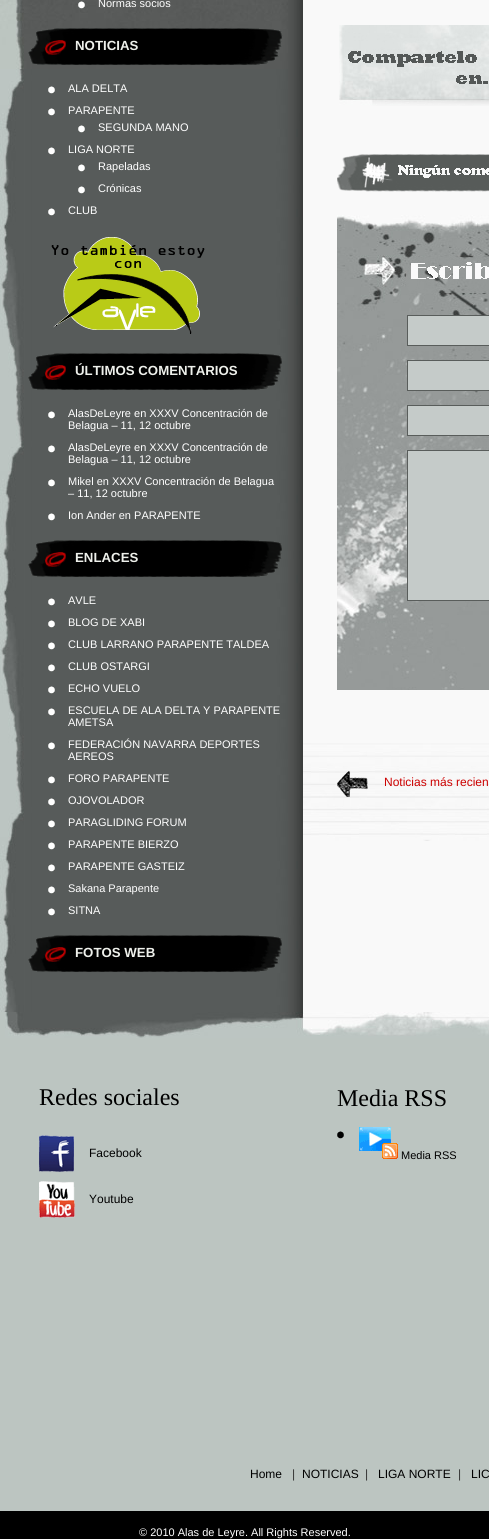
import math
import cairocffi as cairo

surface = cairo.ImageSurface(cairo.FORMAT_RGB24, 489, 1539)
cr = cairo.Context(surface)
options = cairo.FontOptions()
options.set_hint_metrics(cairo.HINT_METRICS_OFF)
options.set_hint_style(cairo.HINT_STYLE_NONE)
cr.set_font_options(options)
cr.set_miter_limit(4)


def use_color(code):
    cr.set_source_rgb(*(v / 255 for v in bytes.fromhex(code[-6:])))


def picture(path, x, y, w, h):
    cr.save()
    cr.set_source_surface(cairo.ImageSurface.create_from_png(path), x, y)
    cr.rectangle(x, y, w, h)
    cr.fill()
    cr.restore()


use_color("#bcc5c1")
cr.paint()
picture("img1.png", 0, 0, 489, 1012)
picture("img2.png", 0, 0, 288, 69)
picture("img3.png", 78, 1, 7, 8)
cr.select_font_face("Liberation Sans")
cr.set_font_size(11)
use_color("#ffffff")
cr.move_to(98, 7)
cr.show_text("Normas socios")
picture("img4.png", 28, 28, 255, 37)
cr.select_font_face("Liberation Sans", cairo.FONT_SLANT_NORMAL, cairo.FONT_WEIGHT_BOLD)
cr.set_font_size(13.25)
use_color("#eef0eb")
cr.move_to(75, 50)
cr.show_text("NOTICIAS")
picture("img5.png", 48, 86, 7, 8)
cr.select_font_face("Liberation Sans")
cr.set_font_size(11)
use_color("#ffffff")
cr.move_to(68, 92)
cr.show_text("ALA DELTA")
picture("img5.png", 48, 108, 7, 8)
cr.move_to(68, 114)
cr.show_text("PARAPENTE")
picture("img5.png", 78, 125, 7, 8)
cr.move_to(98, 131)
cr.show_text("SEGUNDA MANO")
picture("img5.png", 48, 147, 7, 8)
cr.move_to(68, 153)
cr.show_text("LIGA NORTE")
picture("img5.png", 78, 164, 7, 8)
cr.move_to(98, 170)
cr.show_text("Rapeladas")
picture("img5.png", 78, 186, 7, 8)
cr.move_to(98, 192)
cr.show_text("Crónicas")
picture("img5.png", 48, 208, 7, 8)
cr.move_to(68, 214)
cr.show_text("CLUB")
picture("img6.png", 51, 237, 154, 97)
picture("img7.png", 28, 353, 254, 37)
cr.select_font_face("Liberation Sans", cairo.FONT_SLANT_NORMAL, cairo.FONT_WEIGHT_BOLD)
cr.set_font_size(13.25)
use_color("#eef0eb")
cr.move_to(75, 375)
cr.show_text("ÚLTIMOS COMENTARIOS")
picture("img5.png", 48, 411, 7, 8)
cr.select_font_face("Liberation Sans")
cr.set_font_size(11)
use_color("#ffffff")
cr.move_to(68, 417)
cr.show_text("AlasDeLeyre en XXXV Concentración de")
cr.move_to(68, 429)
cr.show_text("Belagua – 11, 12 octubre")
picture("img5.png", 48, 445, 7, 8)
cr.move_to(68, 451)
cr.show_text("AlasDeLeyre en XXXV Concentración de")
cr.move_to(68, 463)
cr.show_text("Belagua – 11, 12 octubre")
picture("img5.png", 48, 479, 7, 8)
cr.move_to(68, 485)
cr.show_text("Mikel en XXXV Concentración de Belagua")
cr.move_to(68, 497)
cr.show_text("– 11, 12 octubre")
picture("img5.png", 48, 513, 7, 8)
cr.move_to(68, 519)
cr.show_text("Ion Ander en PARAPENTE")
picture("img8.png", 28, 540, 254, 37)
cr.select_font_face("Liberation Sans", cairo.FONT_SLANT_NORMAL, cairo.FONT_WEIGHT_BOLD)
cr.set_font_size(13.25)
use_color("#eef0eb")
cr.move_to(75, 562)
cr.show_text("ENLACES")
picture("img5.png", 48, 598, 7, 8)
cr.select_font_face("Liberation Sans")
cr.set_font_size(11)
use_color("#ffffff")
cr.move_to(68, 604)
cr.show_text("AVLE")
picture("img5.png", 48, 620, 7, 8)
cr.move_to(68, 626)
cr.show_text("BLOG DE XABI")
picture("img5.png", 48, 642, 7, 8)
cr.move_to(68, 648)
cr.show_text("CLUB LARRANO PARAPENTE TALDEA")
picture("img5.png", 48, 664, 7, 8)
cr.move_to(68, 670)
cr.show_text("CLUB OSTARGI")
picture("img5.png", 48, 686, 7, 8)
cr.move_to(68, 692)
cr.show_text("ECHO VUELO")
picture("img5.png", 48, 708, 7, 8)
cr.move_to(68, 714)
cr.show_text("ESCUELA DE ALA DELTA Y PARAPENTE")
cr.move_to(68, 726)
cr.show_text("AMETSA")
picture("img5.png", 48, 742, 7, 8)
cr.move_to(68, 748)
cr.show_text("FEDERACIÓN NAVARRA DEPORTES")
cr.move_to(68, 760)
cr.show_text("AEREOS")
picture("img5.png", 48, 776, 7, 8)
cr.move_to(68, 782)
cr.show_text("FORO PARAPENTE")
picture("img5.png", 48, 798, 7, 8)
cr.move_to(68, 804)
cr.show_text("OJOVOLADOR")
picture("img5.png", 48, 820, 7, 8)
cr.move_to(68, 826)
cr.show_text("PARAGLIDING FORUM")
picture("img5.png", 48, 842, 7, 8)
cr.move_to(68, 848)
cr.show_text("PARAPENTE BIERZO")
picture("img5.png", 48, 864, 7, 8)
cr.move_to(68, 870)
cr.show_text("PARAPENTE GASTEIZ")
picture("img5.png", 48, 886, 7, 8)
cr.move_to(68, 892)
cr.show_text("Sakana Parapente")
picture("img5.png", 48, 908, 7, 8)
cr.move_to(68, 914)
cr.show_text("SITNA")
picture("img9.png", 28, 935, 254, 37)
cr.select_font_face("Liberation Sans", cairo.FONT_SLANT_NORMAL, cairo.FONT_WEIGHT_BOLD)
cr.set_font_size(13.25)
use_color("#eef0eb")
cr.move_to(75, 957)
cr.show_text("FOTOS WEB")
picture("img10.png", 339, 25, 150, 81)
picture("img11.png", 337, 154, 152, 38)
picture("img12.png", 337, 215, 152, 475)
use_color("#c5cbc9")
cr.rectangle(407.5, 315.5, 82, 30)
cr.fill_preserve()
use_color("#595d5b")
cr.set_line_width(1)
cr.stroke()
use_color("#c5cbc9")
cr.rectangle(407.5, 360.5, 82, 30)
cr.fill_preserve()
use_color("#595d5b")
cr.stroke()
use_color("#c5cbc9")
cr.rectangle(407.5, 405.5, 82, 30)
cr.fill_preserve()
use_color("#595d5b")
cr.stroke()
use_color("#c5cbc9")
cr.rectangle(407.5, 450.5, 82, 150)
cr.fill_preserve()
use_color("#595d5b")
cr.stroke()
picture("img13.png", 303, 743, 186, 98)
picture("img14.png", 337, 771, 31, 26)
cr.select_font_face("Liberation Sans")
cr.set_font_size(12)
use_color("#cc0000")
cr.move_to(384, 786)
cr.show_text("Noticias más recien")
picture("img15.png", 5, 1012, 484, 26)
cr.select_font_face("Liberation Serif")
cr.set_font_size(24)
use_color("#000000")
cr.move_to(39, 1105)
cr.show_text("Redes sociales")
picture("img16.png", 39, 1135, 35, 37)
cr.select_font_face("Liberation Sans")
cr.set_font_size(12)
cr.move_to(89, 1157)
cr.show_text("Facebook")
picture("img17.png", 39, 1181, 36, 37)
cr.move_to(89, 1203)
cr.show_text("Youtube")
cr.select_font_face("Liberation Serif")
cr.set_font_size(24)
cr.move_to(337, 1106)
cr.show_text("Media RSS")
picture("img18.png", 337, 1131, 7, 8)
picture("img19.png", 359, 1127, 39, 32)
cr.select_font_face("Liberation Sans")
cr.set_font_size(11)
cr.move_to(401, 1159)
cr.show_text("Media RSS")
cr.set_font_size(12)
cr.move_to(250, 1478)
cr.show_text("Home")
use_color("#333333")
cr.move_to(292, 1478)
cr.show_text("|")
use_color("#000000")
cr.move_to(302, 1478)
cr.show_text("NOTICIAS")
use_color("#333333")
cr.move_to(365, 1478)
cr.show_text("|")
use_color("#000000")
cr.move_to(378, 1478)
cr.show_text("LIGA NORTE")
use_color("#333333")
cr.move_to(458, 1478)
cr.show_text("|")
use_color("#000000")
cr.move_to(471, 1478)
cr.show_text("LIC")
cr.rectangle(0, 1511, 489, 28)
cr.fill()
cr.set_font_size(11)
use_color("#ffffff")
cr.move_to(139, 1536)
cr.show_text("© 2010 Alas de Leyre. All Rights Reserved.")
surface.write_to_png("result.png")
